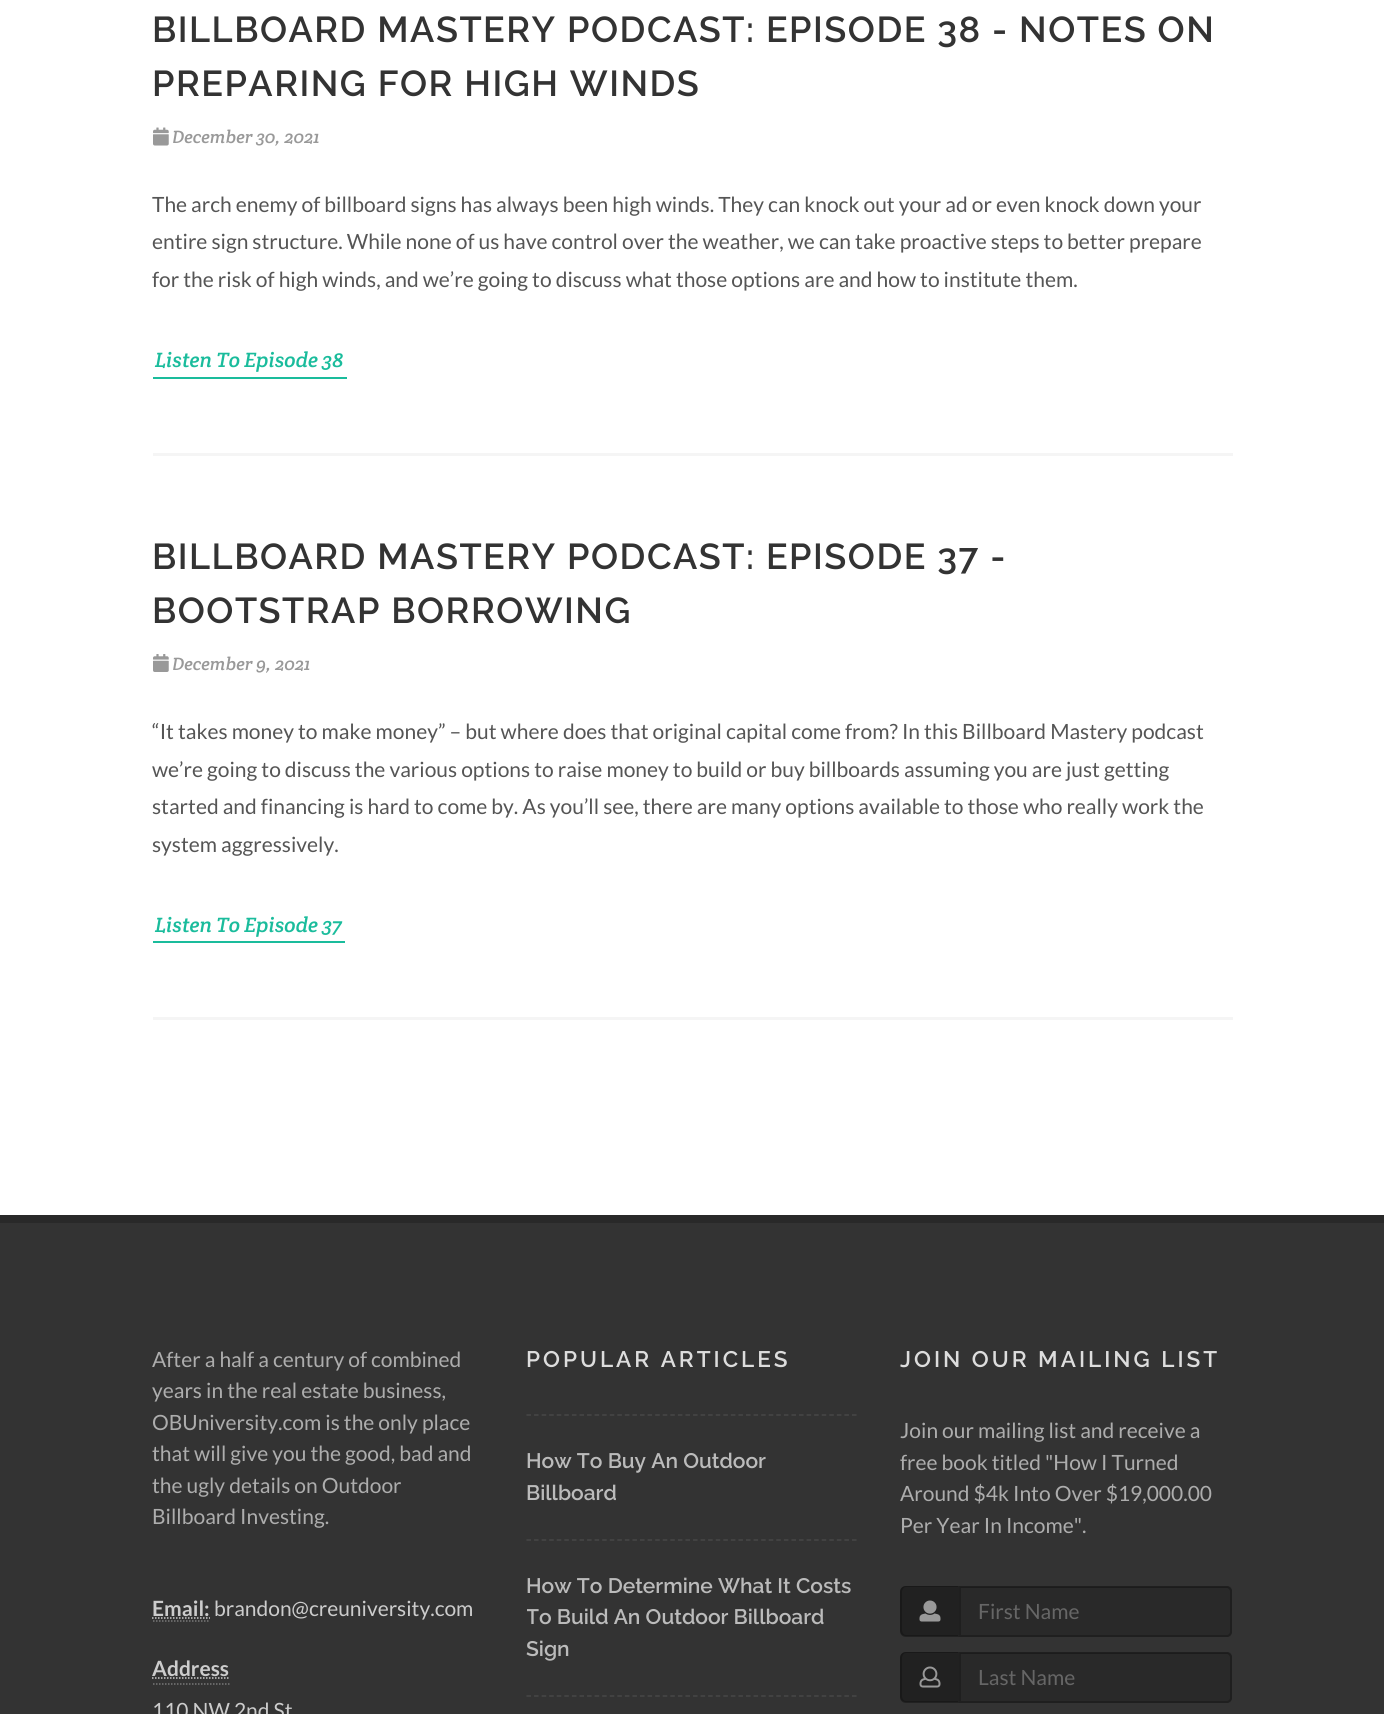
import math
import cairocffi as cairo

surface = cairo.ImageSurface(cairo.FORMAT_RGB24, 1384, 1714)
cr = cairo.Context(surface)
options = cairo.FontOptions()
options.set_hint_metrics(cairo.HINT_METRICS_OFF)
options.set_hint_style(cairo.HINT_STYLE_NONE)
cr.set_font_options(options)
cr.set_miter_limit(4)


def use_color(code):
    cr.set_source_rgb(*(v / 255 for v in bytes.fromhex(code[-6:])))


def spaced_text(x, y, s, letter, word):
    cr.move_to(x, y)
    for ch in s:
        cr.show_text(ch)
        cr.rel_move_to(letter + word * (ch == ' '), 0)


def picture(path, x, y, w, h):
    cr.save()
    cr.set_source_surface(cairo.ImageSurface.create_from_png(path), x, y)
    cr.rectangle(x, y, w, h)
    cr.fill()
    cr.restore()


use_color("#ffffff")
cr.paint()
use_color("#f5f5f5")
cr.rectangle(153, 453, 1080, 3)
cr.fill()
cr.select_font_face("Raleway SemiBold")
cr.set_font_size(36)
use_color("#333333")
spaced_text(152, 42, "BILLBOARD MASTERY PODCAST: EPISODE 38 - NOTES ON", 1.5, 0)
spaced_text(152, 96, "PREPARING FOR HIGH WINDS", 1.5, 0)
picture("img1.png", 153, 127, 16, 19)
cr.select_font_face("Crete Round", cairo.FONT_SLANT_ITALIC)
cr.set_font_size(18)
use_color("#999999")
cr.move_to(172, 143)
cr.show_text("December 30, 2021")
cr.select_font_face("Lato")
cr.set_font_size(21)
use_color("#555555")
cr.move_to(152, 212)
cr.show_text("The arch enemy of billboard signs has always been high winds. They can knock out your ad or even knock down your")
cr.move_to(152, 249)
cr.show_text("entire sign structure. While none of us have control over the weather, we can take proactive steps to better prepare")
cr.move_to(152, 287)
cr.show_text("for the risk of high winds, and we’re going to discuss what those options are and how to institute them.")
use_color("#1abc9c")
cr.rectangle(153, 377, 194, 2)
cr.fill()
cr.select_font_face("Crete Round", cairo.FONT_SLANT_ITALIC)
cr.move_to(155, 367)
cr.show_text("Listen To Episode 38")
use_color("#f5f5f5")
cr.rectangle(153, 1017, 1080, 3)
cr.fill()
cr.select_font_face("Raleway SemiBold")
cr.set_font_size(36)
use_color("#333333")
spaced_text(152, 569, "BILLBOARD MASTERY PODCAST: EPISODE 37 -", 1.5, 0)
spaced_text(152, 623, "BOOTSTRAP BORROWING", 1.5, 0)
picture("img2.png", 153, 654, 16, 18)
cr.select_font_face("Crete Round", cairo.FONT_SLANT_ITALIC)
cr.set_font_size(18)
use_color("#999999")
cr.move_to(172, 670)
cr.show_text("December 9, 2021")
cr.select_font_face("Lato")
cr.set_font_size(21)
use_color("#555555")
cr.move_to(152, 739)
cr.show_text("“It takes money to make money” – but where does that original capital come from? In this Billboard Mastery podcast")
cr.move_to(152, 777)
cr.show_text("we’re going to discuss the various options to raise money to build or buy billboards assuming you are just getting")
cr.move_to(152, 814)
cr.show_text("started and financing is hard to come by. As you’ll see, there are many options available to those who really work the")
cr.move_to(152, 852)
cr.show_text("system aggressively.")
use_color("#1abc9c")
cr.rectangle(153, 941, 192, 2)
cr.fill()
cr.select_font_face("Crete Round", cairo.FONT_SLANT_ITALIC)
cr.move_to(155, 932)
cr.show_text("Listen To Episode 37")
use_color("#333333")
cr.rectangle(0, 1223, 1384, 491)
cr.fill()
use_color("#292929")
cr.rectangle(0, 1215, 1384, 8)
cr.fill()
cr.select_font_face("Lato")
use_color("#adadad")
cr.move_to(152, 1367)
cr.show_text("After a half a century of combined")
cr.move_to(152, 1398)
cr.show_text("years in the real estate business,")
cr.move_to(152, 1430)
cr.show_text("OBUniversity.com is the only place")
cr.move_to(152, 1461)
cr.show_text("that will give you the good, bad and")
cr.move_to(152, 1493)
cr.show_text("the ugly details on Outdoor")
cr.move_to(152, 1524)
cr.show_text("Billboard Investing.")
cr.select_font_face("Lato", cairo.FONT_SLANT_NORMAL, cairo.FONT_WEIGHT_BOLD)
use_color("#cccccc")
cr.move_to(152, 1616)
cr.show_text("Email:")
cr.new_path()
cr.move_to(153, 1621)
cr.line_to(210, 1621)
use_color("#777777")
cr.set_line_width(1.5)
cr.set_dash([1.5, 1.5])
cr.stroke()
cr.new_path()
cr.move_to(152, 1618)
cr.line_to(210, 1618)
use_color("#cccccc")
cr.stroke()
cr.select_font_face("Lato")
cr.move_to(214, 1616)
cr.show_text("brandon@creuniversity.com")
cr.new_path()
cr.move_to(153, 1684)
cr.line_to(229.5, 1684)
use_color("#777777")
cr.stroke()
cr.select_font_face("Lato", cairo.FONT_SLANT_NORMAL, cairo.FONT_WEIGHT_BOLD)
use_color("#cccccc")
cr.move_to(152, 1676)
cr.show_text("Address")
cr.new_path()
cr.move_to(152, 1678)
cr.line_to(229.5, 1678)
cr.stroke()
cr.select_font_face("Lato")
cr.move_to(152, 1718)
cr.show_text("110 NW 2nd St")
cr.select_font_face("Raleway SemiBold")
cr.set_font_size(22.5)
use_color("#dddddd")
spaced_text(526, 1367, "POPULAR ARTICLES", 3, 0)
cr.new_path()
cr.move_to(526.5, 1415)
cr.line_to(856.5, 1415)
use_color("#474747")
cr.set_dash([4.5, 3.07])
cr.stroke()
cr.set_font_size(21)
use_color("#bbbbbb")
cr.move_to(526, 1468)
cr.show_text("How To Buy An Outdoor")
cr.move_to(526, 1500)
cr.show_text("Billboard")
cr.new_path()
cr.move_to(526.5, 1540)
cr.line_to(856.5, 1540)
use_color("#474747")
cr.stroke()
use_color("#bbbbbb")
cr.move_to(526, 1593)
cr.show_text("How To Determine What It Costs")
cr.save()
cr.rectangle(527, 1571, 330, 94)
cr.clip()
cr.move_to(526, 1624)
cr.show_text("To Build An Outdoor Billboard")
cr.restore()
cr.move_to(526, 1656)
cr.show_text("Sign")
cr.new_path()
cr.move_to(526.5, 1696)
cr.line_to(856.5, 1696)
use_color("#474747")
cr.stroke()
cr.set_font_size(22.5)
use_color("#dddddd")
spaced_text(900, 1367, "JOIN OUR MAILING LIST", 3, 0)
cr.select_font_face("Lato")
cr.set_font_size(21)
use_color("#adadad")
cr.move_to(900, 1438)
cr.show_text("Join our mailing list and receive a")
cr.move_to(900, 1470)
cr.show_text("free book titled \"How I Turned")
cr.move_to(900, 1501)
cr.show_text("Around $4k Into Over $19,000.00")
cr.move_to(900, 1533)
cr.show_text("Per Year In Income\".")
use_color("#212121")
cr.new_path()
cr.move_to(906, 1586)
cr.line_to(959, 1586)
cr.line_to(959, 1637)
cr.line_to(906, 1637)
cr.curve_to(902.5, 1637, 900, 1634.5, 900, 1631)
cr.line_to(900, 1592)
cr.curve_to(900, 1588.5, 902.5, 1586, 906, 1586)
cr.close_path()
cr.fill()
cr.set_source_rgba(0, 0, 0, 0.25)
cr.set_fill_rule(cairo.FILL_RULE_EVEN_ODD)
cr.new_path()
cr.move_to(906, 1586)
cr.line_to(958, 1586)
cr.line_to(958, 1636)
cr.line_to(906, 1636)
cr.curve_to(903, 1636, 900, 1634, 900, 1630)
cr.line_to(900, 1592)
cr.curve_to(900, 1588, 903, 1586, 906, 1586)
cr.close_path()
cr.move_to(906, 1587)
cr.line_to(958, 1587)
cr.line_to(958, 1635)
cr.line_to(906, 1635)
cr.curve_to(904, 1635, 902, 1633, 902, 1630)
cr.line_to(902, 1592)
cr.curve_to(902, 1589, 904, 1587, 906, 1587)
cr.close_path()
cr.fill()
picture("img3.png", 919, 1600, 22, 22)
use_color("#292929")
cr.new_path()
cr.move_to(959, 1586)
cr.line_to(1227, 1586)
cr.curve_to(1230, 1586, 1232, 1588, 1232, 1591)
cr.line_to(1232, 1632)
cr.curve_to(1232, 1635, 1230, 1637, 1227, 1637)
cr.line_to(959, 1637)
cr.close_path()
cr.fill()
use_color("#262626")
cr.set_fill_rule(cairo.FILL_RULE_WINDING)
cr.new_path()
cr.move_to(960, 1588)
cr.line_to(1227, 1588)
cr.curve_to(1229, 1588, 1230, 1590, 1230, 1592)
cr.curve_to(1230, 1590, 1230, 1588, 1228, 1587)
cr.line_to(960, 1587)
cr.close_path()
cr.fill()
cr.new_path()
cr.move_to(960, 1587)
cr.line_to(1227, 1587)
cr.curve_to(1229, 1587, 1231, 1589, 1231, 1591)
cr.line_to(1231, 1632)
cr.curve_to(1231, 1634, 1229, 1636, 1227, 1636)
cr.line_to(960, 1636)
cr.close_path()
cr.set_source_rgba(0, 0, 0, 0.25)
cr.set_line_width(2)
cr.set_dash([])
cr.stroke()
use_color("#666666")
cr.move_to(978, 1619)
cr.show_text("First Name")
use_color("#212121")
cr.new_path()
cr.move_to(906, 1652)
cr.line_to(959, 1652)
cr.line_to(959, 1703)
cr.line_to(906, 1703)
cr.curve_to(902.5, 1703, 900, 1700.5, 900, 1697)
cr.line_to(900, 1658)
cr.curve_to(900, 1654.5, 902.5, 1652, 906, 1652)
cr.close_path()
cr.fill()
cr.set_source_rgba(0, 0, 0, 0.25)
cr.set_fill_rule(cairo.FILL_RULE_EVEN_ODD)
cr.new_path()
cr.move_to(906, 1652)
cr.line_to(958, 1652)
cr.line_to(958, 1702)
cr.line_to(906, 1702)
cr.curve_to(903, 1702, 900, 1700, 900, 1696)
cr.line_to(900, 1658)
cr.curve_to(900, 1654, 903, 1652, 906, 1652)
cr.close_path()
cr.move_to(906, 1653)
cr.line_to(958, 1653)
cr.line_to(958, 1701)
cr.line_to(906, 1701)
cr.curve_to(904, 1701, 902, 1699, 902, 1696)
cr.line_to(902, 1658)
cr.curve_to(902, 1655, 904, 1653, 906, 1653)
cr.close_path()
cr.fill()
picture("img4.png", 919, 1666, 22, 22)
use_color("#292929")
cr.new_path()
cr.move_to(959, 1652)
cr.line_to(1227, 1652)
cr.curve_to(1230, 1652, 1232, 1654, 1232, 1657)
cr.line_to(1232, 1698)
cr.curve_to(1232, 1701, 1230, 1703, 1227, 1703)
cr.line_to(959, 1703)
cr.close_path()
cr.fill()
use_color("#262626")
cr.set_fill_rule(cairo.FILL_RULE_WINDING)
cr.new_path()
cr.move_to(960, 1654)
cr.line_to(1227, 1654)
cr.curve_to(1229, 1654, 1230, 1656, 1230, 1658)
cr.curve_to(1230, 1656, 1230, 1654, 1228, 1653)
cr.line_to(960, 1653)
cr.close_path()
cr.fill()
cr.new_path()
cr.move_to(960, 1653)
cr.line_to(1227, 1653)
cr.curve_to(1229, 1653, 1231, 1655, 1231, 1657)
cr.line_to(1231, 1698)
cr.curve_to(1231, 1700, 1229, 1702, 1227, 1702)
cr.line_to(960, 1702)
cr.close_path()
cr.set_source_rgba(0, 0, 0, 0.25)
cr.stroke()
use_color("#666666")
cr.move_to(978, 1685)
cr.show_text("Last Name")
surface.write_to_png("result.png")
